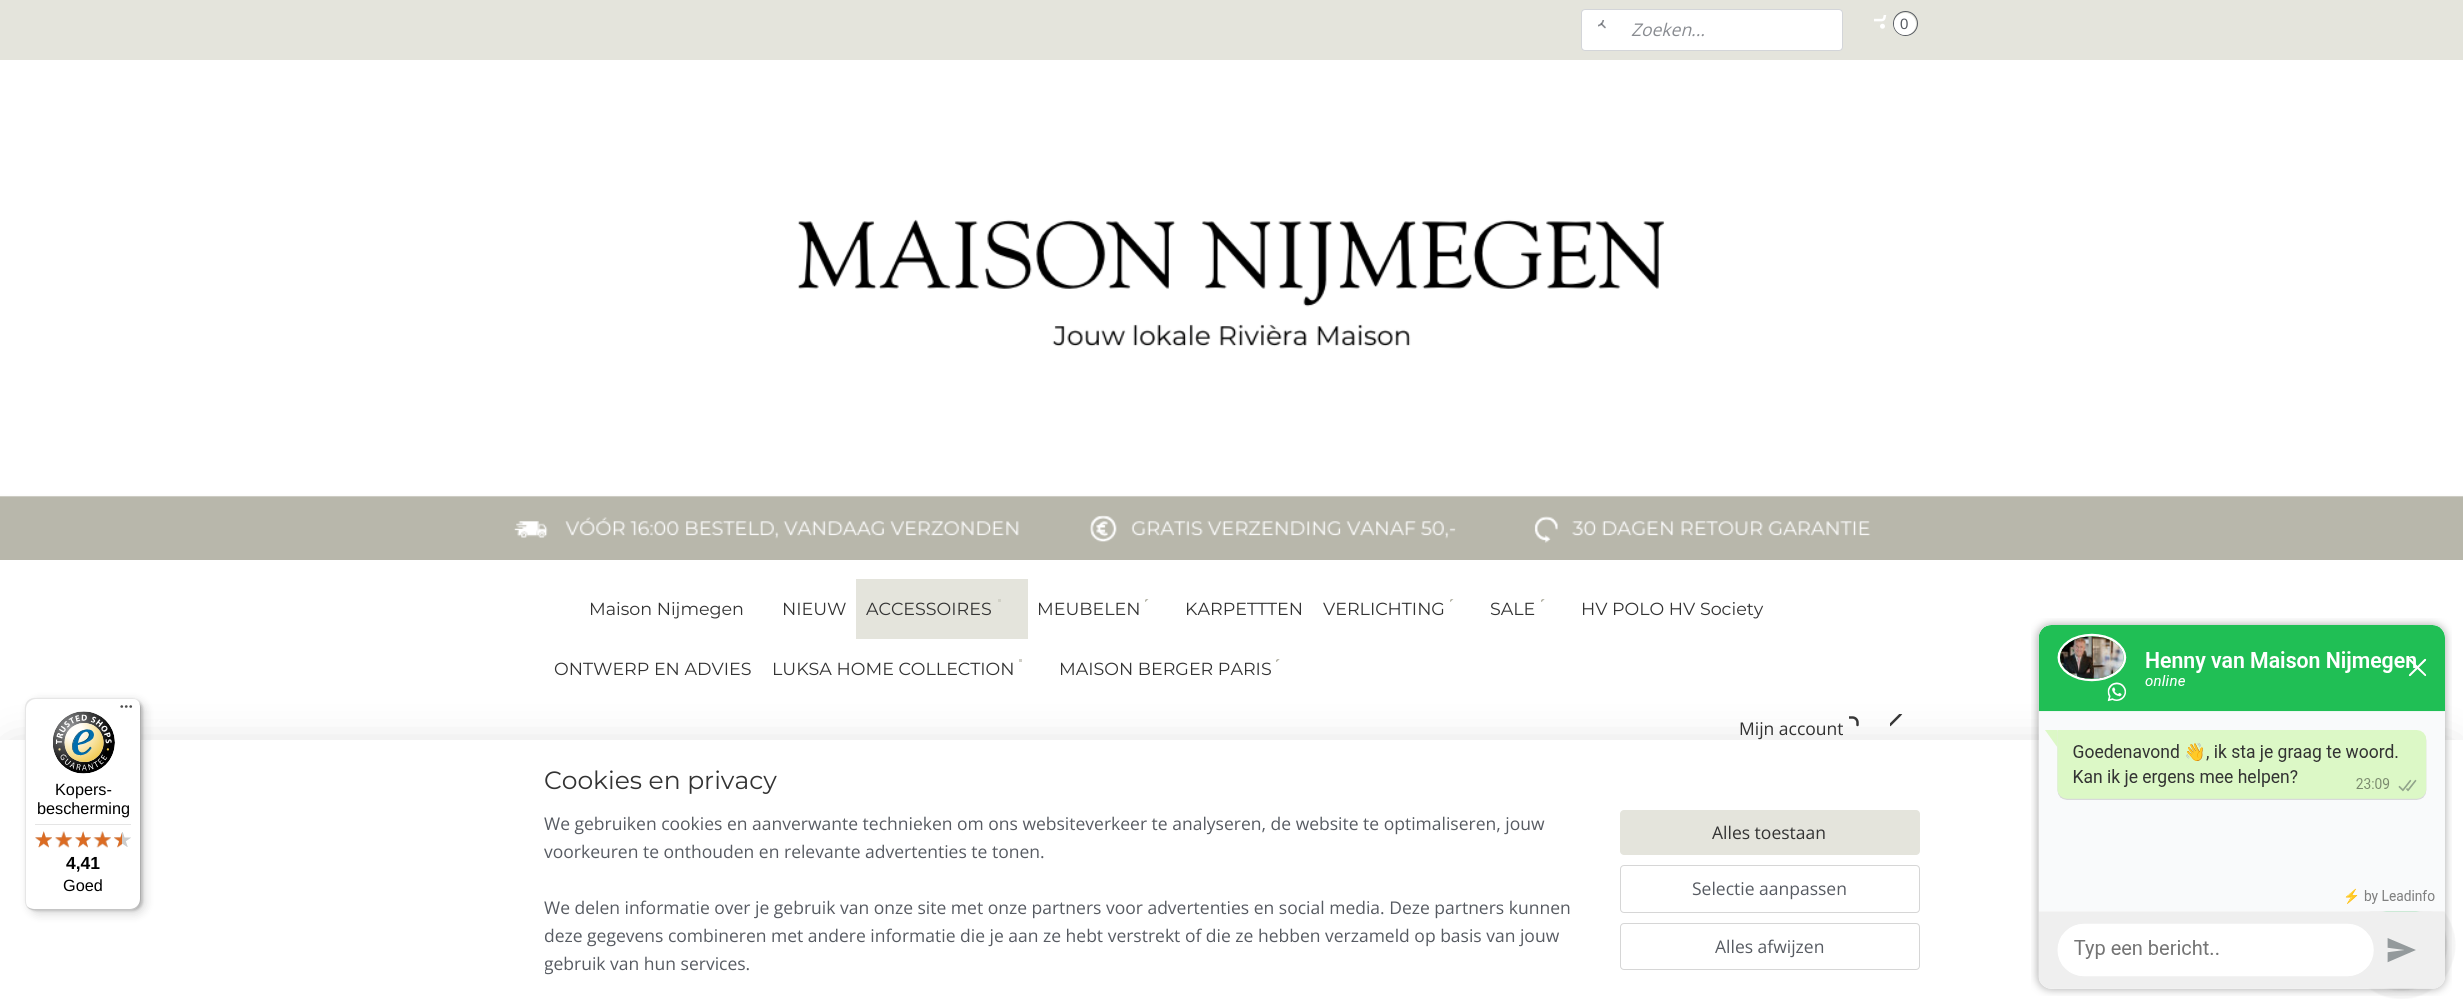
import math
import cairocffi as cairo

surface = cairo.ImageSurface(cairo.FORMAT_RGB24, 2463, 1007)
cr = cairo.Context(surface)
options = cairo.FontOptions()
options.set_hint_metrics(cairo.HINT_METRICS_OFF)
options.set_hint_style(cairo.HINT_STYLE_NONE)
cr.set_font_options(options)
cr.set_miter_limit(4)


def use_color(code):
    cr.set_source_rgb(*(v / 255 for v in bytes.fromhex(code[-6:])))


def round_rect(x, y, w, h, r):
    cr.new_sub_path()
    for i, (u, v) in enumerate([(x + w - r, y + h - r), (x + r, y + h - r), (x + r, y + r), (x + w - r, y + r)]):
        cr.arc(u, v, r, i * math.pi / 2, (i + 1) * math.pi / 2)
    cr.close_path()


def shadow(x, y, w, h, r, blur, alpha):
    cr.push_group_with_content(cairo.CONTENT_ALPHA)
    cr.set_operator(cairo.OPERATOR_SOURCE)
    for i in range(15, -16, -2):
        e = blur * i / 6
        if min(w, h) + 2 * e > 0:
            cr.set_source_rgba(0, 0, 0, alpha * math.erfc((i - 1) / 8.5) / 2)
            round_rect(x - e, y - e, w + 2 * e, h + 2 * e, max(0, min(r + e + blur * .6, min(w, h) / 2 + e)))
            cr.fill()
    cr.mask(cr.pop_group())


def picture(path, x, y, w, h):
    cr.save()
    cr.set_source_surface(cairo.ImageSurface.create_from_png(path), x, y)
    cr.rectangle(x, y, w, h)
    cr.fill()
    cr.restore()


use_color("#ffffff")
cr.paint()
use_color("#e4e4dc")
cr.rectangle(0, 0, 2463, 60)
cr.fill()
use_color("#ffffff")
round_rect(1581.5, 9.5, 261, 41, 3.5)
cr.fill_preserve()
use_color("#d3d5d9")
cr.set_line_width(1)
cr.stroke()
picture("img1.png", 1598, 20, 8, 9)
cr.select_font_face("Open Sans", cairo.FONT_SLANT_ITALIC)
cr.set_font_size(17.5)
use_color("#898c91")
cr.move_to(1631, 36)
cr.show_text("Zoeken...")
picture("img2.png", 1874, 15, 13, 14)
cr.arc(1905.5, 23.5, 12, 0, 2 * math.pi)
use_color("#575b62")
cr.stroke()
use_color("#ffffff")
cr.arc(1905, 24, 11, 0, 2 * math.pi)
cr.fill()
cr.select_font_face("Liberation Sans")
cr.set_font_size(15)
use_color("#575b62")
cr.move_to(1900, 29)
cr.show_text("0")
picture("img3.png", 0, 219, 2463, 341)
cr.select_font_face("Montserrat")
cr.set_font_size(17.5)
use_color("#333333")
cr.move_to(589, 615)
cr.show_text("Maison Nijmegen")
cr.move_to(782, 615)
cr.show_text("NIEUW")
use_color("#e4e4dc")
cr.rectangle(856, 579, 172, 60)
cr.fill()
use_color("#d1d1c7")
cr.rectangle(998, 599, 3, 3)
cr.fill()
use_color("#333333")
cr.move_to(866, 615)
cr.show_text("ACCESSOIRES")
picture("img4.png", 1145, 599, 4, 3)
cr.move_to(1037, 615)
cr.show_text("MEUBELEN")
cr.move_to(1185, 615)
cr.show_text("KARPETTTEN")
picture("img4.png", 1450, 599, 4, 3)
cr.move_to(1323, 615)
cr.show_text("VERLICHTING")
picture("img5.png", 1541, 599, 4, 3)
cr.move_to(1490, 615)
cr.show_text("SALE")
cr.move_to(1581, 615)
cr.show_text("HV POLO HV Society")
cr.move_to(554, 675)
cr.show_text("ONTWERP EN ADVIES")
use_color("#d0cfc8")
cr.rectangle(1019, 659, 3, 3)
cr.fill()
use_color("#333333")
cr.move_to(772, 675)
cr.show_text("LUKSA HOME COLLECTION")
picture("img5.png", 1276, 659, 4, 3)
cr.move_to(1059, 675)
cr.show_text("MAISON BERGER PARIS")
picture("img6.png", 1890, 714, 13, 13)
cr.select_font_face("Open Sans")
cr.move_to(1739, 735)
cr.show_text("Mijn account")
picture("img7.png", 1849, 716, 10, 11)
use_color("#000000")
shadow(13, 753, 2438, 242, 0, 22.5, 0.2)
use_color("#ffffff")
cr.rectangle(0, 740, 2463, 267)
cr.fill()
use_color("#000000")
shadow(29, 701, 116, 213, 10, 5, 0.15)
shadow(26, 699, 117, 212, 10, 1, 0.15)
use_color("#ffffff")
round_rect(25, 698, 116, 212, 10)
cr.fill()
cr.set_source_rgba(0, 0, 0, 0.1)
cr.new_path()
cr.move_to(36, 699)
cr.line_to(132, 699)
cr.curve_to(134, 699, 136, 699, 137, 700)
cr.curve_to(136, 699, 133, 698, 131, 698)
cr.line_to(35, 698)
cr.curve_to(29, 698, 25, 702, 25, 708)
cr.line_to(25, 900)
cr.curve_to(25, 903, 26, 906, 28, 908)
cr.curve_to(27, 906, 26, 904, 26, 901)
cr.line_to(26, 709)
cr.curve_to(26, 703, 31, 699, 36, 699)
cr.close_path()
cr.fill()
cr.set_source_rgba(0, 0, 0, 0.2)
cr.new_path()
cr.move_to(27, 907)
cr.curve_to(29, 909, 32, 910, 35, 910)
cr.line_to(131, 910)
cr.curve_to(137, 910, 141, 906, 141, 900)
cr.line_to(141, 708)
cr.curve_to(141, 706, 140, 704, 139, 702)
cr.line_to(140, 706)
cr.line_to(140, 899)
cr.curve_to(140, 904, 136, 909, 130, 909)
cr.line_to(34, 909)
cr.curve_to(31, 909, 29, 908, 27, 907)
cr.close_path()
cr.fill()
cr.set_source_rgba(0.196, 0.196, 0.196, 0.2)
cr.new_path()
cr.move_to(27, 906)
cr.curve_to(29, 909, 32, 910, 35, 910)
cr.line_to(131, 910)
cr.curve_to(137, 910, 141, 906, 141, 900)
cr.line_to(141, 708)
cr.curve_to(141, 706, 140, 703, 139, 702)
cr.curve_to(140, 703, 140, 705, 140, 707)
cr.line_to(140, 899)
cr.curve_to(140, 905, 136, 909, 130, 909)
cr.line_to(34, 909)
cr.curve_to(32, 909, 29, 908, 27, 906)
cr.close_path()
cr.fill()
picture("img8.png", 120, 705, 13, 3)
cr.set_source_rgba(1, 1, 1, 0.3)
cr.new_path()
cr.move_to(27, 906)
cr.curve_to(29, 909, 32, 910, 35, 910)
cr.line_to(131, 910)
cr.curve_to(137, 910, 141, 906, 141, 900)
cr.line_to(141, 899)
cr.curve_to(141, 905, 136, 909, 131, 909)
cr.line_to(34, 909)
cr.curve_to(32, 909, 29, 908, 27, 906)
cr.close_path()
cr.fill()
picture("img9.png", 53, 711, 62, 63)
cr.select_font_face("Liberation Sans")
cr.set_font_size(16.25)
use_color("#000000")
cr.move_to(55, 795)
cr.show_text("Kopers-")
cr.move_to(37, 814)
cr.show_text("bescherming")
use_color("#e5e5e5")
cr.rectangle(35, 824, 96, 1)
cr.fill()
picture("img10.png", 35, 832, 17, 15)
picture("img11.png", 55, 831, 17, 17)
picture("img12.png", 75, 832, 16, 15)
picture("img13.png", 93, 831, 18, 17)
picture("img14.png", 114, 832, 17, 15)
picture("img15.png", 35, 831, 17, 17)
picture("img16.png", 55, 831, 18, 17)
picture("img17.png", 75, 831, 16, 17)
picture("img18.png", 93, 831, 18, 17)
picture("img19.png", 114, 832, 8, 16)
cr.select_font_face("Liberation Sans", cairo.FONT_SLANT_NORMAL, cairo.FONT_WEIGHT_BOLD)
cr.set_font_size(17.5)
use_color("#000000")
cr.move_to(66, 869)
cr.show_text("4,41")
cr.select_font_face("Liberation Sans")
cr.set_font_size(16.25)
cr.move_to(63, 891)
cr.show_text("Goed")
cr.select_font_face("Montserrat")
cr.set_font_size(25)
use_color("#333333")
cr.move_to(544, 789)
cr.show_text("Cookies en privacy")
cr.select_font_face("Open Sans")
cr.set_font_size(17.5)
use_color("#575b62")
cr.move_to(544, 830)
cr.show_text("We gebruiken cookies en aanverwante technieken om ons websiteverkeer te analyseren, de website te optimaliseren, jouw")
cr.move_to(544, 858)
cr.show_text("voorkeuren te onthouden en relevante advertenties te tonen.")
cr.move_to(544, 914)
cr.show_text("We delen informatie over je gebruik van onze site met onze partners voor advertenties en social media. Deze partners kunnen")
cr.move_to(544, 942)
cr.show_text("deze gegevens combineren met andere informatie die je aan ze hebt verstrekt of die ze hebben verzameld op basis van jouw")
cr.save()
cr.rectangle(545, 810, 1045, 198)
cr.clip()
cr.move_to(544, 970)
cr.show_text("gebruik van hun services.")
cr.restore()
use_color("#e4e4dc")
round_rect(1620, 810, 300, 45, 4)
cr.fill()
use_color("#333333")
cr.move_to(1712, 839)
cr.show_text("Alles toestaan")
round_rect(1620.5, 865.5, 299, 47, 3.5)
use_color("#d6d6d6")
cr.stroke()
use_color("#575b62")
cr.move_to(1692, 895)
cr.show_text("Selectie aanpassen")
round_rect(1620.5, 923.5, 299, 46, 3.5)
use_color("#d6d6d6")
cr.stroke()
use_color("#575b62")
cr.move_to(1715, 953)
cr.show_text("Alles afwijzen")
picture("img21.png", 2359, 911, 97, 88)
picture("img20.png", 2031, 618, 421, 378)
surface.write_to_png("result.png")
